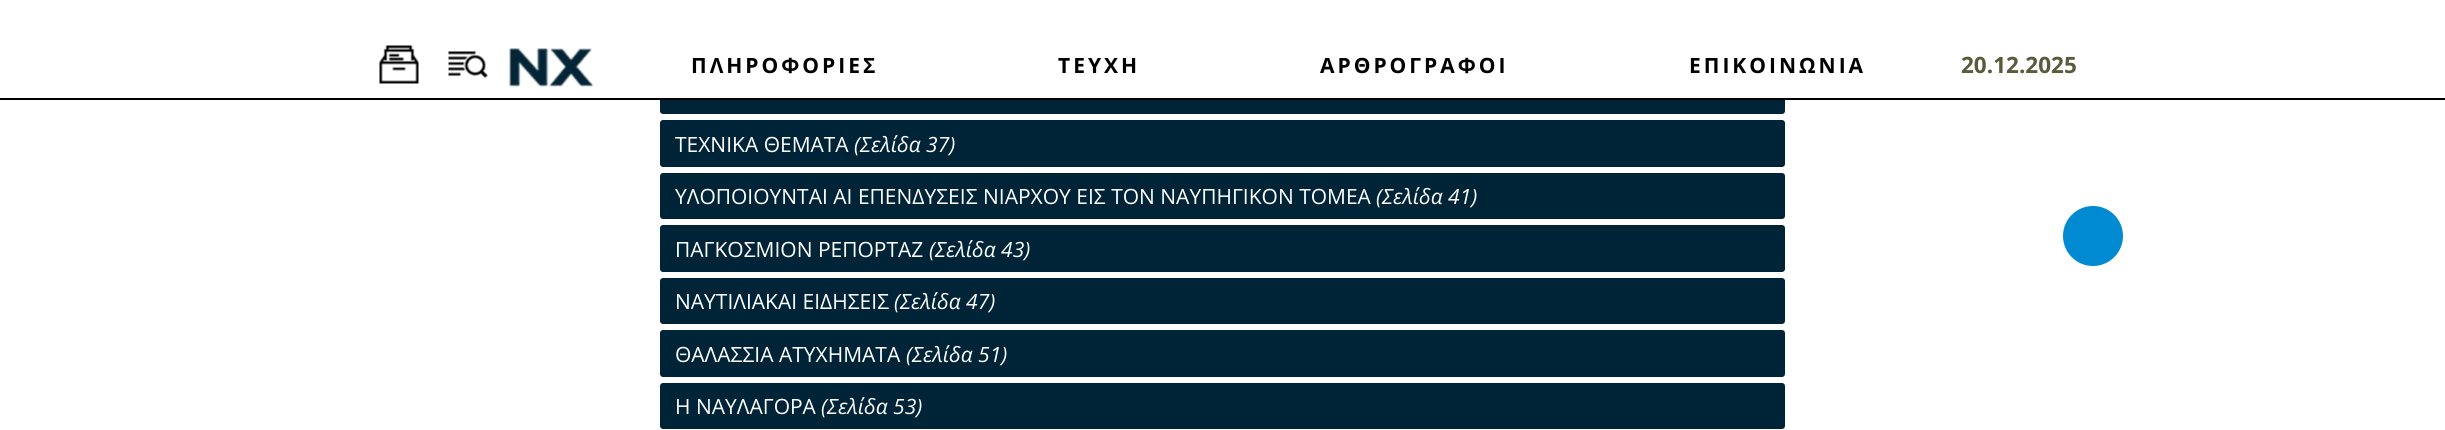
import math
import cairocffi as cairo

surface = cairo.ImageSurface(cairo.FORMAT_RGB24, 2445, 430)
cr = cairo.Context(surface)
options = cairo.FontOptions()
options.set_hint_metrics(cairo.HINT_METRICS_OFF)
options.set_hint_style(cairo.HINT_STYLE_NONE)
cr.set_font_options(options)
cr.set_miter_limit(4)


def use_color(code):
    cr.set_source_rgb(*(v / 255 for v in bytes.fromhex(code[-6:])))


def spaced_text(x, y, s, letter, word):
    cr.move_to(x, y)
    for ch in s:
        cr.show_text(ch)
        cr.rel_move_to(letter + word * (ch == ' '), 0)


def round_rect(x, y, w, h, r):
    cr.new_sub_path()
    for i, (u, v) in enumerate([(x + w - r, y + h - r), (x + r, y + h - r), (x + r, y + r), (x + w - r, y + r)]):
        cr.arc(u, v, r, i * math.pi / 2, (i + 1) * math.pi / 2)
    cr.close_path()


def picture(path, x, y, w, h):
    cr.save()
    cr.set_source_surface(cairo.ImageSurface.create_from_png(path), x, y)
    cr.rectangle(x, y, w, h)
    cr.fill()
    cr.restore()


use_color("#ffffff")
cr.paint()
use_color("#002437")
round_rect(660, 68, 1125, 46, 3)
cr.fill()
use_color("#ffffff")
cr.rectangle(660, 68, 1125, 30)
cr.fill()
picture("img1.png", 379, 45, 40, 39)
picture("img2.png", 448, 51, 40, 27)
picture("img3.png", 508, 48, 86, 39)
cr.select_font_face("Open Sans", cairo.FONT_SLANT_NORMAL, cairo.FONT_WEIGHT_BOLD)
cr.set_font_size(21)
use_color("#000000")
spaced_text(691, 73, "ΠΛΗΡΟΦΟΡΙΕΣ", 3, 0)
spaced_text(1058, 73, "ΤΕΥΧΗ", 3, 0)
spaced_text(1320, 73, "ΑΡΘΡΟΓΡΑΦΟΙ", 3, 0)
spaced_text(1689, 73, "ΕΠΙΚΟΙΝΩΝΙΑ", 3, 0)
cr.set_font_size(22.5)
use_color("#5a5b3a")
cr.move_to(1961, 73)
cr.show_text("20.12.2025")
use_color("#000000")
cr.rectangle(0, 98, 2445, 2)
cr.fill()
use_color("#002437")
round_rect(660, 120, 1125, 47, 3)
cr.fill()
cr.select_font_face("Open Sans")
cr.set_font_size(21)
use_color("#ffffff")
cr.move_to(675, 152)
cr.show_text("ΤΕΧΝΙΚΑ ΘΕΜΑΤΑ")
cr.select_font_face("Open Sans", cairo.FONT_SLANT_ITALIC)
cr.move_to(854, 152)
cr.show_text("(Σελίδα 37)")
use_color("#002437")
round_rect(660, 173, 1125, 46, 3)
cr.fill()
cr.select_font_face("Open Sans")
use_color("#ffffff")
cr.move_to(675, 204)
cr.show_text("ΥΛΟΠΟΙΟΥΝΤΑΙ ΑΙ ΕΠΕΝΔΥΣΕΙΣ ΝΙΑΡΧΟΥ ΕΙΣ ΤΟΝ ΝΑΥΠΗΓΙΚΟΝ ΤΟΜΕΑ")
cr.select_font_face("Open Sans", cairo.FONT_SLANT_ITALIC)
cr.move_to(1376, 204)
cr.show_text("(Σελίδα 41)")
use_color("#002437")
round_rect(660, 225, 1125, 47, 3)
cr.fill()
cr.select_font_face("Open Sans")
use_color("#ffffff")
cr.move_to(675, 257)
cr.show_text("ΠΑΓΚΟΣΜΙΟΝ ΡΕΠΟΡΤΑΖ")
cr.select_font_face("Open Sans", cairo.FONT_SLANT_ITALIC)
cr.move_to(929, 257)
cr.show_text("(Σελίδα 43)")
use_color("#002437")
round_rect(660, 278, 1125, 46, 3)
cr.fill()
cr.select_font_face("Open Sans")
use_color("#ffffff")
cr.move_to(675, 309)
cr.show_text("ΝΑΥΤΙΛΙΑΚΑΙ ΕΙΔΗΣΕΙΣ")
cr.select_font_face("Open Sans", cairo.FONT_SLANT_ITALIC)
cr.move_to(894, 309)
cr.show_text("(Σελίδα 47)")
use_color("#002437")
round_rect(660, 330, 1125, 47, 3)
cr.fill()
cr.select_font_face("Open Sans")
use_color("#ffffff")
cr.move_to(675, 362)
cr.show_text("ΘΑΛΑΣΣΙΑ ΑΤΥΧΗΜΑΤΑ")
cr.select_font_face("Open Sans", cairo.FONT_SLANT_ITALIC)
cr.move_to(906, 362)
cr.show_text("(Σελίδα 51)")
use_color("#002437")
round_rect(660, 383, 1125, 46, 3)
cr.fill()
cr.select_font_face("Open Sans")
use_color("#ffffff")
cr.move_to(675, 414)
cr.show_text("Η ΝΑΥΛΑΓΟΡΑ")
cr.select_font_face("Open Sans", cairo.FONT_SLANT_ITALIC)
cr.move_to(821, 414)
cr.show_text("(Σελίδα 53)")
use_color("#008ad2")
cr.new_path()
cr.arc(2093, 236, 30, 0, 2 * math.pi)
cr.fill()
surface.write_to_png("result.png")
